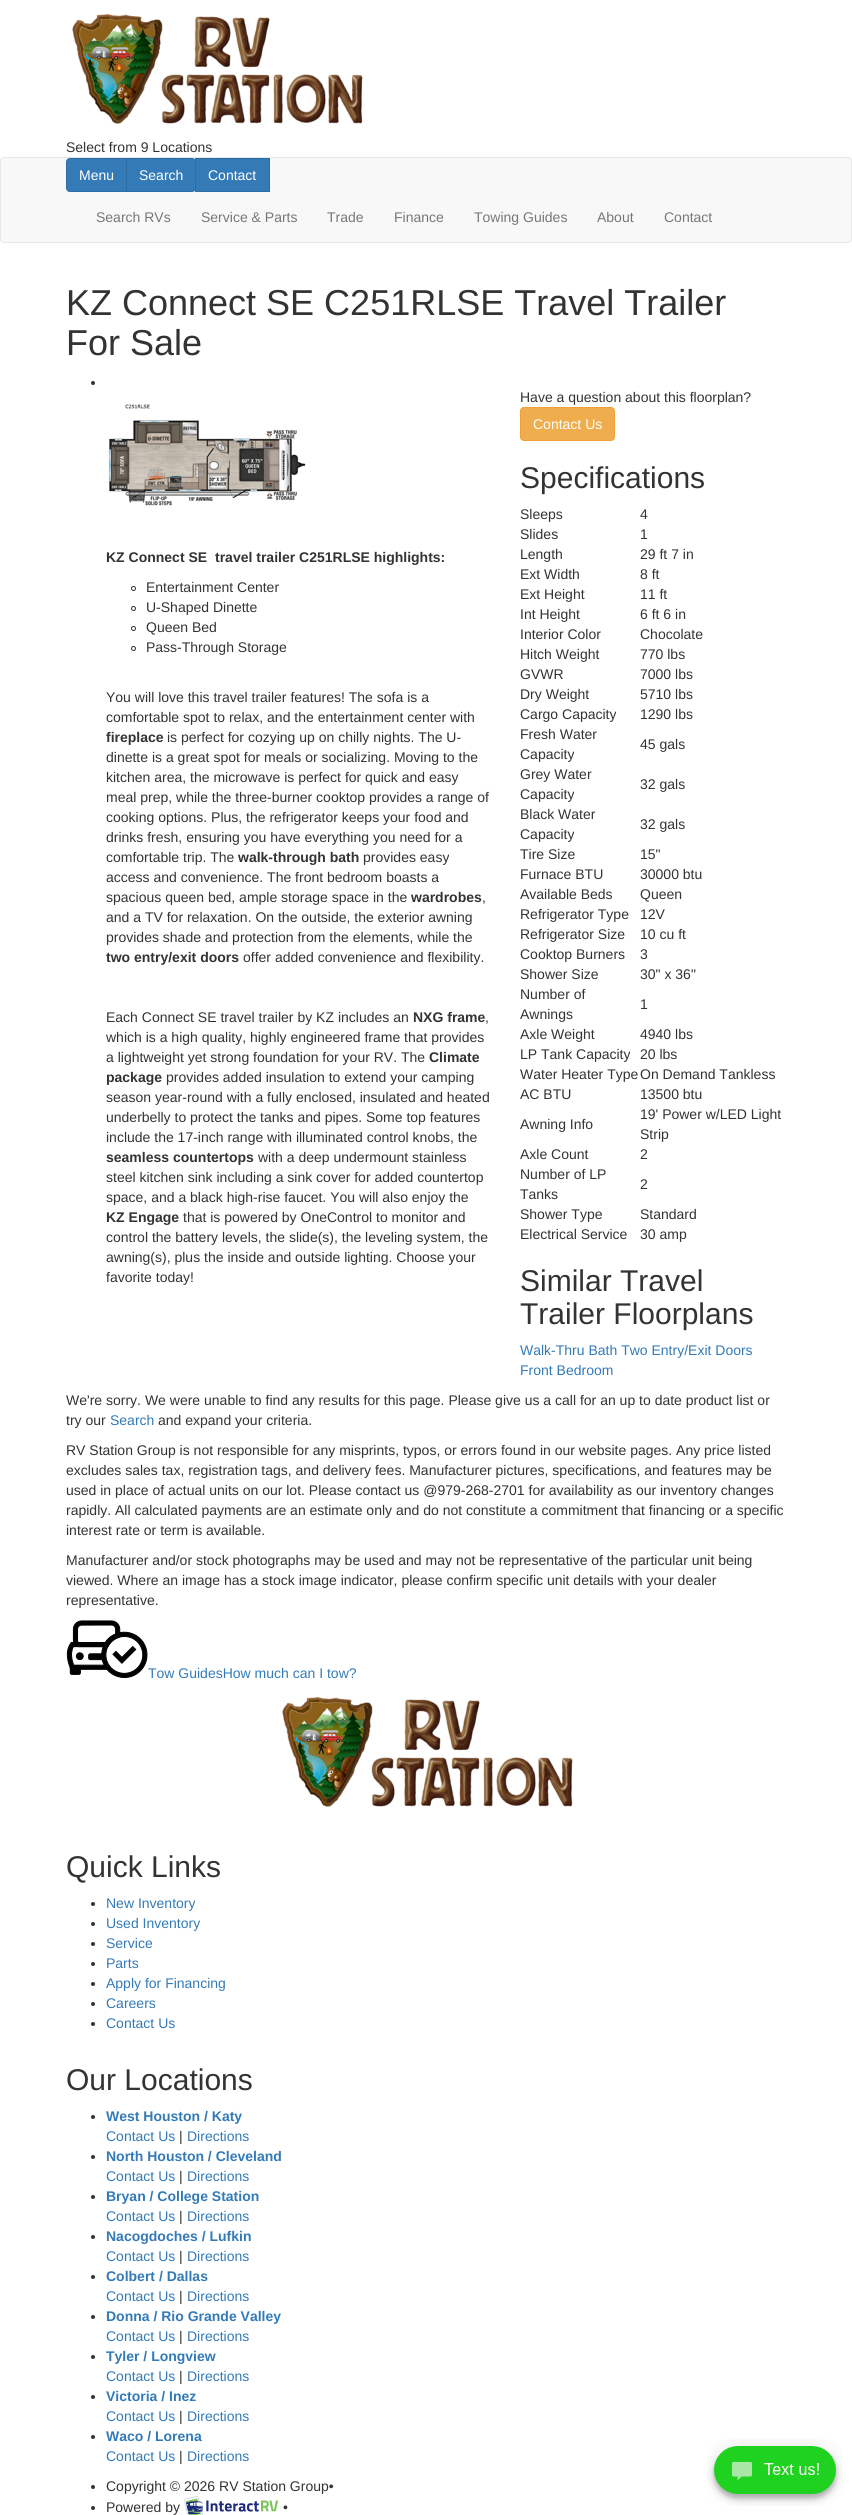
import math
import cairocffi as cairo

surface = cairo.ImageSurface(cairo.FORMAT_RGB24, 852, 2515)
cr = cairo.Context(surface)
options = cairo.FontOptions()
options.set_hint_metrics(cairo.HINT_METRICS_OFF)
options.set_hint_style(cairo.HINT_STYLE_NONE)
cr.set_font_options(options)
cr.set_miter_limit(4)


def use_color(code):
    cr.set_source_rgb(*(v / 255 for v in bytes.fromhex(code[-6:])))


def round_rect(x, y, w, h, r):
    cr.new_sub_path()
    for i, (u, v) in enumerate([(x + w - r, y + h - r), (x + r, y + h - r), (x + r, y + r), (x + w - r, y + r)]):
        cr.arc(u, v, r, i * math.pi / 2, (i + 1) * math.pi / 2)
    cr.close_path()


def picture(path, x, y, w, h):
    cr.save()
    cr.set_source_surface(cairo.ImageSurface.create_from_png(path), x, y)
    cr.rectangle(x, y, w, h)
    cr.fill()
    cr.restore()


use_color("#ffffff")
cr.paint()
picture("img1.png", 72, 14, 291, 110)
cr.select_font_face("Liberation Sans")
cr.set_font_size(14)
use_color("#333333")
cr.move_to(66, 152)
cr.show_text("Select from 9 Locations")
use_color("#f8f8f8")
round_rect(0.5, 157.5, 851, 85, 3.5)
cr.fill_preserve()
use_color("#e7e7e7")
cr.set_line_width(1)
cr.stroke()
use_color("#337ab7")
cr.new_path()
cr.move_to(70, 158.5)
cr.line_to(126.5, 158.5)
cr.line_to(126.5, 191.5)
cr.line_to(70, 191.5)
cr.curve_to(68, 191.5, 66.5, 190, 66.5, 188)
cr.line_to(66.5, 162)
cr.curve_to(66.5, 160, 68, 158.5, 70, 158.5)
cr.close_path()
cr.fill_preserve()
use_color("#2e6da4")
cr.stroke()
use_color("#ffffff")
cr.move_to(79, 180)
cr.show_text("Menu")
use_color("#337ab7")
cr.rectangle(195.5, 158.5, 74, 33)
cr.fill_preserve()
use_color("#2e6da4")
cr.stroke()
use_color("#337ab7")
cr.new_path()
cr.move_to(126.5, 158.5)
cr.line_to(192, 158.5)
cr.curve_to(194, 158.5, 195.5, 160, 195.5, 162)
cr.line_to(195.5, 188)
cr.curve_to(195.5, 190, 194, 191.5, 192, 191.5)
cr.line_to(126.5, 191.5)
cr.close_path()
cr.fill_preserve()
use_color("#2e6da4")
cr.stroke()
use_color("#ffffff")
cr.move_to(139, 180)
cr.show_text("Search")
cr.move_to(208, 180)
cr.show_text("Contact")
use_color("#777777")
cr.move_to(96, 222)
cr.show_text("Search RVs")
cr.move_to(201, 222)
cr.show_text("Service & Parts")
cr.move_to(327, 222)
cr.show_text("Trade")
cr.move_to(394, 222)
cr.show_text("Finance")
cr.move_to(474, 222)
cr.show_text("Towing Guides")
cr.move_to(597, 222)
cr.show_text("About")
cr.move_to(664, 222)
cr.show_text("Contact")
cr.set_font_size(36)
use_color("#333333")
cr.move_to(66, 315)
cr.show_text("KZ Connect SE C251RLSE Travel Trailer")
cr.move_to(66, 355)
cr.show_text("For Sale")
cr.new_path()
cr.arc(93, 383, 2, 0, 2 * math.pi)
cr.fill()
picture("img2.png", 108, 404, 198, 102)
cr.select_font_face("Liberation Sans", cairo.FONT_SLANT_NORMAL, cairo.FONT_WEIGHT_BOLD)
cr.set_font_size(14)
cr.move_to(106, 562)
cr.show_text("KZ Connect SE")
cr.move_to(215, 562)
cr.show_text("travel trailer C251RLSE highlights:")
cr.new_path()
cr.arc(133.5, 588.5, 2, 0, 2 * math.pi)
cr.stroke()
cr.select_font_face("Liberation Sans")
cr.move_to(146, 592)
cr.show_text("Entertainment Center")
cr.new_path()
cr.arc(133.5, 608.5, 2, 0, 2 * math.pi)
cr.stroke()
cr.move_to(146, 612)
cr.show_text("U-Shaped Dinette")
cr.new_path()
cr.arc(133.5, 628.5, 2, 0, 2 * math.pi)
cr.stroke()
cr.move_to(146, 632)
cr.show_text("Queen Bed")
cr.new_path()
cr.arc(133.5, 648.5, 2, 0, 2 * math.pi)
cr.stroke()
cr.move_to(146, 652)
cr.show_text("Pass-Through Storage")
cr.move_to(106, 702)
cr.show_text("You will love this travel trailer features! The sofa is a")
cr.move_to(106, 722)
cr.show_text("comfortable spot to relax, and the entertainment center with")
cr.select_font_face("Liberation Sans", cairo.FONT_SLANT_NORMAL, cairo.FONT_WEIGHT_BOLD)
cr.move_to(106, 742)
cr.show_text("fireplace")
cr.select_font_face("Liberation Sans")
cr.move_to(167, 742)
cr.show_text("is perfect for cozying up on chilly nights. The U-")
cr.move_to(106, 762)
cr.show_text("dinette is a great spot for meals or socializing. Moving to the")
cr.move_to(106, 782)
cr.show_text("kitchen area, the microwave is perfect for quick and easy")
cr.move_to(106, 802)
cr.show_text("meal prep, while the three-burner cooktop provides a range of")
cr.move_to(106, 822)
cr.show_text("cooking options. Plus, the refrigerator keeps your food and")
cr.move_to(106, 842)
cr.show_text("drinks fresh, ensuring you have everything you need for a")
cr.move_to(106, 862)
cr.show_text("comfortable trip. The")
cr.select_font_face("Liberation Sans", cairo.FONT_SLANT_NORMAL, cairo.FONT_WEIGHT_BOLD)
cr.move_to(238, 862)
cr.show_text("walk-through bath")
cr.select_font_face("Liberation Sans")
cr.move_to(363, 862)
cr.show_text("provides easy")
cr.move_to(106, 882)
cr.show_text("access and convenience. The front bedroom boasts a")
cr.move_to(106, 902)
cr.show_text("spacious queen bed, ample storage space in the")
cr.select_font_face("Liberation Sans", cairo.FONT_SLANT_NORMAL, cairo.FONT_WEIGHT_BOLD)
cr.move_to(411, 902)
cr.show_text("wardrobes")
cr.select_font_face("Liberation Sans")
cr.move_to(482, 902)
cr.show_text(",")
cr.move_to(106, 922)
cr.show_text("and a TV for relaxation. On the outside, the exterior awning")
cr.move_to(106, 942)
cr.show_text("provides shade and protection from the elements, while the")
cr.select_font_face("Liberation Sans", cairo.FONT_SLANT_NORMAL, cairo.FONT_WEIGHT_BOLD)
cr.move_to(106, 962)
cr.show_text("two entry/exit doors")
cr.select_font_face("Liberation Sans")
cr.move_to(243, 962)
cr.show_text("offer added convenience and flexibility.")
cr.move_to(106, 1022)
cr.show_text("Each Connect SE travel trailer by KZ includes an")
cr.select_font_face("Liberation Sans", cairo.FONT_SLANT_NORMAL, cairo.FONT_WEIGHT_BOLD)
cr.move_to(413, 1022)
cr.show_text("NXG frame")
cr.select_font_face("Liberation Sans")
cr.move_to(485, 1022)
cr.show_text(",")
cr.move_to(106, 1042)
cr.show_text("which is a high quality, highly engineered frame that provides")
cr.move_to(106, 1062)
cr.show_text("a lightweight yet strong foundation for your RV. The")
cr.select_font_face("Liberation Sans", cairo.FONT_SLANT_NORMAL, cairo.FONT_WEIGHT_BOLD)
cr.move_to(429, 1062)
cr.show_text("Climate")
cr.move_to(106, 1082)
cr.show_text("package")
cr.select_font_face("Liberation Sans")
cr.move_to(166, 1082)
cr.show_text("provides added insulation to extend your camping")
cr.move_to(106, 1102)
cr.show_text("season year-round with a fully enclosed, insulated and heated")
cr.move_to(106, 1122)
cr.show_text("underbelly to protect the tanks and pipes. Some top features")
cr.move_to(106, 1142)
cr.show_text("include the 17-inch range with illuminated control knobs, the")
cr.select_font_face("Liberation Sans", cairo.FONT_SLANT_NORMAL, cairo.FONT_WEIGHT_BOLD)
cr.move_to(106, 1162)
cr.show_text("seamless countertops")
cr.select_font_face("Liberation Sans")
cr.move_to(258, 1162)
cr.show_text("with a deep undermount stainless")
cr.move_to(106, 1182)
cr.show_text("steel kitchen sink including a sink cover for added countertop")
cr.move_to(106, 1202)
cr.show_text("space, and a black high-rise faucet. You will also enjoy the")
cr.select_font_face("Liberation Sans", cairo.FONT_SLANT_NORMAL, cairo.FONT_WEIGHT_BOLD)
cr.move_to(106, 1222)
cr.show_text("KZ Engage")
cr.select_font_face("Liberation Sans")
cr.move_to(183, 1222)
cr.show_text("that is powered by OneControl to monitor and")
cr.move_to(106, 1242)
cr.show_text("control the battery levels, the slide(s), the leveling system, the")
cr.move_to(106, 1262)
cr.show_text("awning(s), plus the inside and outside lighting. Choose your")
cr.move_to(106, 1282)
cr.show_text("favorite today!")
cr.move_to(520, 402)
cr.show_text("Have a question about this floorplan?")
use_color("#f0ad4e")
round_rect(520.5, 407.5, 94, 33, 3.5)
cr.fill_preserve()
use_color("#eea236")
cr.stroke()
use_color("#ffffff")
cr.move_to(533, 429)
cr.show_text("Contact Us")
cr.set_font_size(30)
use_color("#333333")
cr.move_to(520, 488)
cr.show_text("Specifications")
cr.set_font_size(14)
cr.move_to(520, 519)
cr.show_text("Sleeps")
cr.move_to(640, 519)
cr.show_text("4")
cr.move_to(520, 539)
cr.show_text("Slides")
cr.move_to(640, 539)
cr.show_text("1")
cr.move_to(520, 559)
cr.show_text("Length")
cr.move_to(640, 559)
cr.show_text("29 ft 7 in")
cr.move_to(520, 579)
cr.show_text("Ext Width")
cr.move_to(640, 579)
cr.show_text("8 ft")
cr.move_to(520, 599)
cr.show_text("Ext Height")
cr.move_to(640, 599)
cr.show_text("11 ft")
cr.move_to(520, 619)
cr.show_text("Int Height")
cr.move_to(640, 619)
cr.show_text("6 ft 6 in")
cr.move_to(520, 639)
cr.show_text("Interior Color")
cr.move_to(640, 639)
cr.show_text("Chocolate")
cr.move_to(520, 659)
cr.show_text("Hitch Weight")
cr.move_to(640, 659)
cr.show_text("770 lbs")
cr.move_to(520, 679)
cr.show_text("GVWR")
cr.move_to(640, 679)
cr.show_text("7000 lbs")
cr.move_to(520, 699)
cr.show_text("Dry Weight")
cr.move_to(640, 699)
cr.show_text("5710 lbs")
cr.move_to(520, 719)
cr.show_text("Cargo Capacity")
cr.move_to(640, 719)
cr.show_text("1290 lbs")
cr.move_to(520, 739)
cr.show_text("Fresh Water")
cr.move_to(520, 759)
cr.show_text("Capacity")
cr.move_to(640, 749)
cr.show_text("45 gals")
cr.move_to(520, 779)
cr.show_text("Grey Water")
cr.move_to(520, 799)
cr.show_text("Capacity")
cr.move_to(640, 789)
cr.show_text("32 gals")
cr.move_to(520, 819)
cr.show_text("Black Water")
cr.move_to(520, 839)
cr.show_text("Capacity")
cr.move_to(640, 829)
cr.show_text("32 gals")
cr.move_to(520, 859)
cr.show_text("Tire Size")
cr.move_to(640, 859)
cr.show_text("15\"")
cr.move_to(520, 879)
cr.show_text("Furnace BTU")
cr.move_to(640, 879)
cr.show_text("30000 btu")
cr.move_to(520, 899)
cr.show_text("Available Beds")
cr.move_to(640, 899)
cr.show_text("Queen")
cr.move_to(520, 919)
cr.show_text("Refrigerator Type")
cr.move_to(640, 919)
cr.show_text("12V")
cr.move_to(520, 939)
cr.show_text("Refrigerator Size")
cr.move_to(640, 939)
cr.show_text("10 cu ft")
cr.move_to(520, 959)
cr.show_text("Cooktop Burners")
cr.move_to(640, 959)
cr.show_text("3")
cr.move_to(520, 979)
cr.show_text("Shower Size")
cr.move_to(640, 979)
cr.show_text("30\" x 36\"")
cr.move_to(520, 999)
cr.show_text("Number of")
cr.move_to(520, 1019)
cr.show_text("Awnings")
cr.move_to(640, 1009)
cr.show_text("1")
cr.move_to(520, 1039)
cr.show_text("Axle Weight")
cr.move_to(640, 1039)
cr.show_text("4940 lbs")
cr.move_to(520, 1059)
cr.show_text("LP Tank Capacity")
cr.move_to(640, 1059)
cr.show_text("20 lbs")
cr.move_to(520, 1079)
cr.show_text("Water Heater Type")
cr.move_to(640, 1079)
cr.show_text("On Demand Tankless")
cr.move_to(520, 1099)
cr.show_text("AC BTU")
cr.move_to(640, 1099)
cr.show_text("13500 btu")
cr.move_to(520, 1129)
cr.show_text("Awning Info")
cr.move_to(640, 1119)
cr.show_text("19' Power w/LED Light")
cr.move_to(640, 1139)
cr.show_text("Strip")
cr.move_to(520, 1159)
cr.show_text("Axle Count")
cr.move_to(640, 1159)
cr.show_text("2")
cr.move_to(520, 1179)
cr.show_text("Number of LP")
cr.move_to(520, 1199)
cr.show_text("Tanks")
cr.move_to(640, 1189)
cr.show_text("2")
cr.move_to(520, 1219)
cr.show_text("Shower Type")
cr.move_to(640, 1219)
cr.show_text("Standard")
cr.move_to(520, 1239)
cr.show_text("Electrical Service")
cr.move_to(640, 1239)
cr.show_text("30 amp")
cr.set_font_size(30)
cr.move_to(520, 1291)
cr.show_text("Similar Travel")
cr.move_to(520, 1324)
cr.show_text("Trailer Floorplans")
cr.set_font_size(14)
use_color("#337ab7")
cr.move_to(520, 1355)
cr.show_text("Walk-Thru Bath Two Entry/Exit Doors")
cr.move_to(520, 1375)
cr.show_text("Front Bedroom")
use_color("#333333")
cr.move_to(66, 1405)
cr.show_text("We're sorry. We were unable to find any results for this page. Please give us a call for an up to date product list or")
cr.move_to(66, 1425)
cr.show_text("try our")
use_color("#337ab7")
cr.move_to(110, 1425)
cr.show_text("Search")
use_color("#333333")
cr.move_to(158, 1425)
cr.show_text("and expand your criteria.")
cr.move_to(66, 1455)
cr.show_text("RV Station Group is not responsible for any misprints, typos, or errors found in our website pages. Any price listed")
cr.move_to(66, 1475)
cr.show_text("excludes sales tax, registration tags, and delivery fees. Manufacturer pictures, specifications, and features may be")
cr.move_to(66, 1495)
cr.show_text("used in place of actual units on our lot. Please contact us @979-268-2701 for availability as our inventory changes")
cr.move_to(66, 1515)
cr.show_text("rapidly. All calculated payments are an estimate only and do not constitute a commitment that financing or a specific")
cr.move_to(66, 1535)
cr.show_text("interest rate or term is available.")
cr.move_to(66, 1565)
cr.show_text("Manufacturer and/or stock photographs may be used and may not be representative of the particular unit being")
cr.move_to(66, 1585)
cr.show_text("viewed. Where an image has a stock image indicator, please confirm specific unit details with your dealer")
cr.move_to(66, 1605)
cr.show_text("representative.")
picture("img3.png", 66, 1620, 82, 58)
use_color("#337ab7")
cr.move_to(148, 1678)
cr.show_text("Tow GuidesHow much can I tow?")
picture("img1.png", 282, 1697, 291, 110)
cr.set_font_size(30)
use_color("#333333")
cr.move_to(66, 1877)
cr.show_text("Quick Links")
cr.new_path()
cr.arc(93, 1904, 2, 0, 2 * math.pi)
cr.fill()
cr.set_font_size(14)
use_color("#337ab7")
cr.move_to(106, 1908)
cr.show_text("New Inventory")
use_color("#333333")
cr.new_path()
cr.arc(93, 1924, 2, 0, 2 * math.pi)
cr.fill()
use_color("#337ab7")
cr.move_to(106, 1928)
cr.show_text("Used Inventory")
use_color("#333333")
cr.new_path()
cr.arc(93, 1944, 2, 0, 2 * math.pi)
cr.fill()
use_color("#337ab7")
cr.move_to(106, 1948)
cr.show_text("Service")
use_color("#333333")
cr.new_path()
cr.arc(93, 1964, 2, 0, 2 * math.pi)
cr.fill()
use_color("#337ab7")
cr.move_to(106, 1968)
cr.show_text("Parts")
use_color("#333333")
cr.new_path()
cr.arc(93, 1984, 2, 0, 2 * math.pi)
cr.fill()
use_color("#337ab7")
cr.move_to(106, 1988)
cr.show_text("Apply for Financing")
use_color("#333333")
cr.new_path()
cr.arc(93, 2004, 2, 0, 2 * math.pi)
cr.fill()
use_color("#337ab7")
cr.move_to(106, 2008)
cr.show_text("Careers")
use_color("#333333")
cr.new_path()
cr.arc(93, 2024, 2, 0, 2 * math.pi)
cr.fill()
use_color("#337ab7")
cr.move_to(106, 2028)
cr.show_text("Contact Us")
cr.set_font_size(30)
use_color("#333333")
cr.move_to(66, 2090)
cr.show_text("Our Locations")
cr.new_path()
cr.arc(93, 2117, 2, 0, 2 * math.pi)
cr.fill()
cr.select_font_face("Liberation Sans", cairo.FONT_SLANT_NORMAL, cairo.FONT_WEIGHT_BOLD)
cr.set_font_size(14)
use_color("#337ab7")
cr.move_to(106, 2121)
cr.show_text("West Houston / Katy")
cr.select_font_face("Liberation Sans")
cr.move_to(106, 2141)
cr.show_text("Contact Us")
use_color("#333333")
cr.move_to(179, 2141)
cr.show_text("|")
use_color("#337ab7")
cr.move_to(187, 2141)
cr.show_text("Directions")
use_color("#333333")
cr.new_path()
cr.arc(93, 2157, 2, 0, 2 * math.pi)
cr.fill()
cr.select_font_face("Liberation Sans", cairo.FONT_SLANT_NORMAL, cairo.FONT_WEIGHT_BOLD)
use_color("#337ab7")
cr.move_to(106, 2161)
cr.show_text("North Houston / Cleveland")
cr.select_font_face("Liberation Sans")
cr.move_to(106, 2181)
cr.show_text("Contact Us")
use_color("#333333")
cr.move_to(179, 2181)
cr.show_text("|")
use_color("#337ab7")
cr.move_to(187, 2181)
cr.show_text("Directions")
use_color("#333333")
cr.new_path()
cr.arc(93, 2197, 2, 0, 2 * math.pi)
cr.fill()
cr.select_font_face("Liberation Sans", cairo.FONT_SLANT_NORMAL, cairo.FONT_WEIGHT_BOLD)
use_color("#337ab7")
cr.move_to(106, 2201)
cr.show_text("Bryan / College Station")
cr.select_font_face("Liberation Sans")
cr.move_to(106, 2221)
cr.show_text("Contact Us")
use_color("#333333")
cr.move_to(179, 2221)
cr.show_text("|")
use_color("#337ab7")
cr.move_to(187, 2221)
cr.show_text("Directions")
use_color("#333333")
cr.new_path()
cr.arc(93, 2237, 2, 0, 2 * math.pi)
cr.fill()
cr.select_font_face("Liberation Sans", cairo.FONT_SLANT_NORMAL, cairo.FONT_WEIGHT_BOLD)
use_color("#337ab7")
cr.move_to(106, 2241)
cr.show_text("Nacogdoches / Lufkin")
cr.select_font_face("Liberation Sans")
cr.move_to(106, 2261)
cr.show_text("Contact Us")
use_color("#333333")
cr.move_to(179, 2261)
cr.show_text("|")
use_color("#337ab7")
cr.move_to(187, 2261)
cr.show_text("Directions")
use_color("#333333")
cr.new_path()
cr.arc(93, 2277, 2, 0, 2 * math.pi)
cr.fill()
cr.select_font_face("Liberation Sans", cairo.FONT_SLANT_NORMAL, cairo.FONT_WEIGHT_BOLD)
use_color("#337ab7")
cr.move_to(106, 2281)
cr.show_text("Colbert / Dallas")
cr.select_font_face("Liberation Sans")
cr.move_to(106, 2301)
cr.show_text("Contact Us")
use_color("#333333")
cr.move_to(179, 2301)
cr.show_text("|")
use_color("#337ab7")
cr.move_to(187, 2301)
cr.show_text("Directions")
use_color("#333333")
cr.new_path()
cr.arc(93, 2317, 2, 0, 2 * math.pi)
cr.fill()
cr.select_font_face("Liberation Sans", cairo.FONT_SLANT_NORMAL, cairo.FONT_WEIGHT_BOLD)
use_color("#337ab7")
cr.move_to(106, 2321)
cr.show_text("Donna / Rio Grande Valley")
cr.select_font_face("Liberation Sans")
cr.move_to(106, 2341)
cr.show_text("Contact Us")
use_color("#333333")
cr.move_to(179, 2341)
cr.show_text("|")
use_color("#337ab7")
cr.move_to(187, 2341)
cr.show_text("Directions")
use_color("#333333")
cr.new_path()
cr.arc(93, 2357, 2, 0, 2 * math.pi)
cr.fill()
cr.select_font_face("Liberation Sans", cairo.FONT_SLANT_NORMAL, cairo.FONT_WEIGHT_BOLD)
use_color("#337ab7")
cr.move_to(106, 2361)
cr.show_text("Tyler / Longview")
cr.select_font_face("Liberation Sans")
cr.move_to(106, 2381)
cr.show_text("Contact Us")
use_color("#333333")
cr.move_to(179, 2381)
cr.show_text("|")
use_color("#337ab7")
cr.move_to(187, 2381)
cr.show_text("Directions")
use_color("#333333")
cr.new_path()
cr.arc(93, 2397, 2, 0, 2 * math.pi)
cr.fill()
cr.select_font_face("Liberation Sans", cairo.FONT_SLANT_NORMAL, cairo.FONT_WEIGHT_BOLD)
use_color("#337ab7")
cr.move_to(106, 2401)
cr.show_text("Victoria / Inez")
cr.select_font_face("Liberation Sans")
cr.move_to(106, 2421)
cr.show_text("Contact Us")
use_color("#333333")
cr.move_to(179, 2421)
cr.show_text("|")
use_color("#337ab7")
cr.move_to(187, 2421)
cr.show_text("Directions")
use_color("#333333")
cr.new_path()
cr.arc(93, 2437, 2, 0, 2 * math.pi)
cr.fill()
cr.select_font_face("Liberation Sans", cairo.FONT_SLANT_NORMAL, cairo.FONT_WEIGHT_BOLD)
use_color("#337ab7")
cr.move_to(106, 2441)
cr.show_text("Waco / Lorena")
cr.select_font_face("Liberation Sans")
cr.move_to(106, 2461)
cr.show_text("Contact Us")
use_color("#333333")
cr.move_to(179, 2461)
cr.show_text("|")
use_color("#337ab7")
cr.move_to(187, 2461)
cr.show_text("Directions")
use_color("#333333")
cr.new_path()
cr.arc(93, 2487, 2, 0, 2 * math.pi)
cr.fill()
cr.move_to(106, 2491)
cr.show_text("Copyright © 2026 RV Station Group•")
cr.new_path()
cr.arc(93, 2508, 2, 0, 2 * math.pi)
cr.fill()
cr.move_to(106, 2512)
cr.show_text("Powered by")
picture("img4.png", 184, 2496, 94, 19)
cr.move_to(283, 2512)
cr.show_text("•")
picture("img5.png", 707, 2439, 136, 67)
surface.write_to_png("result.png")
